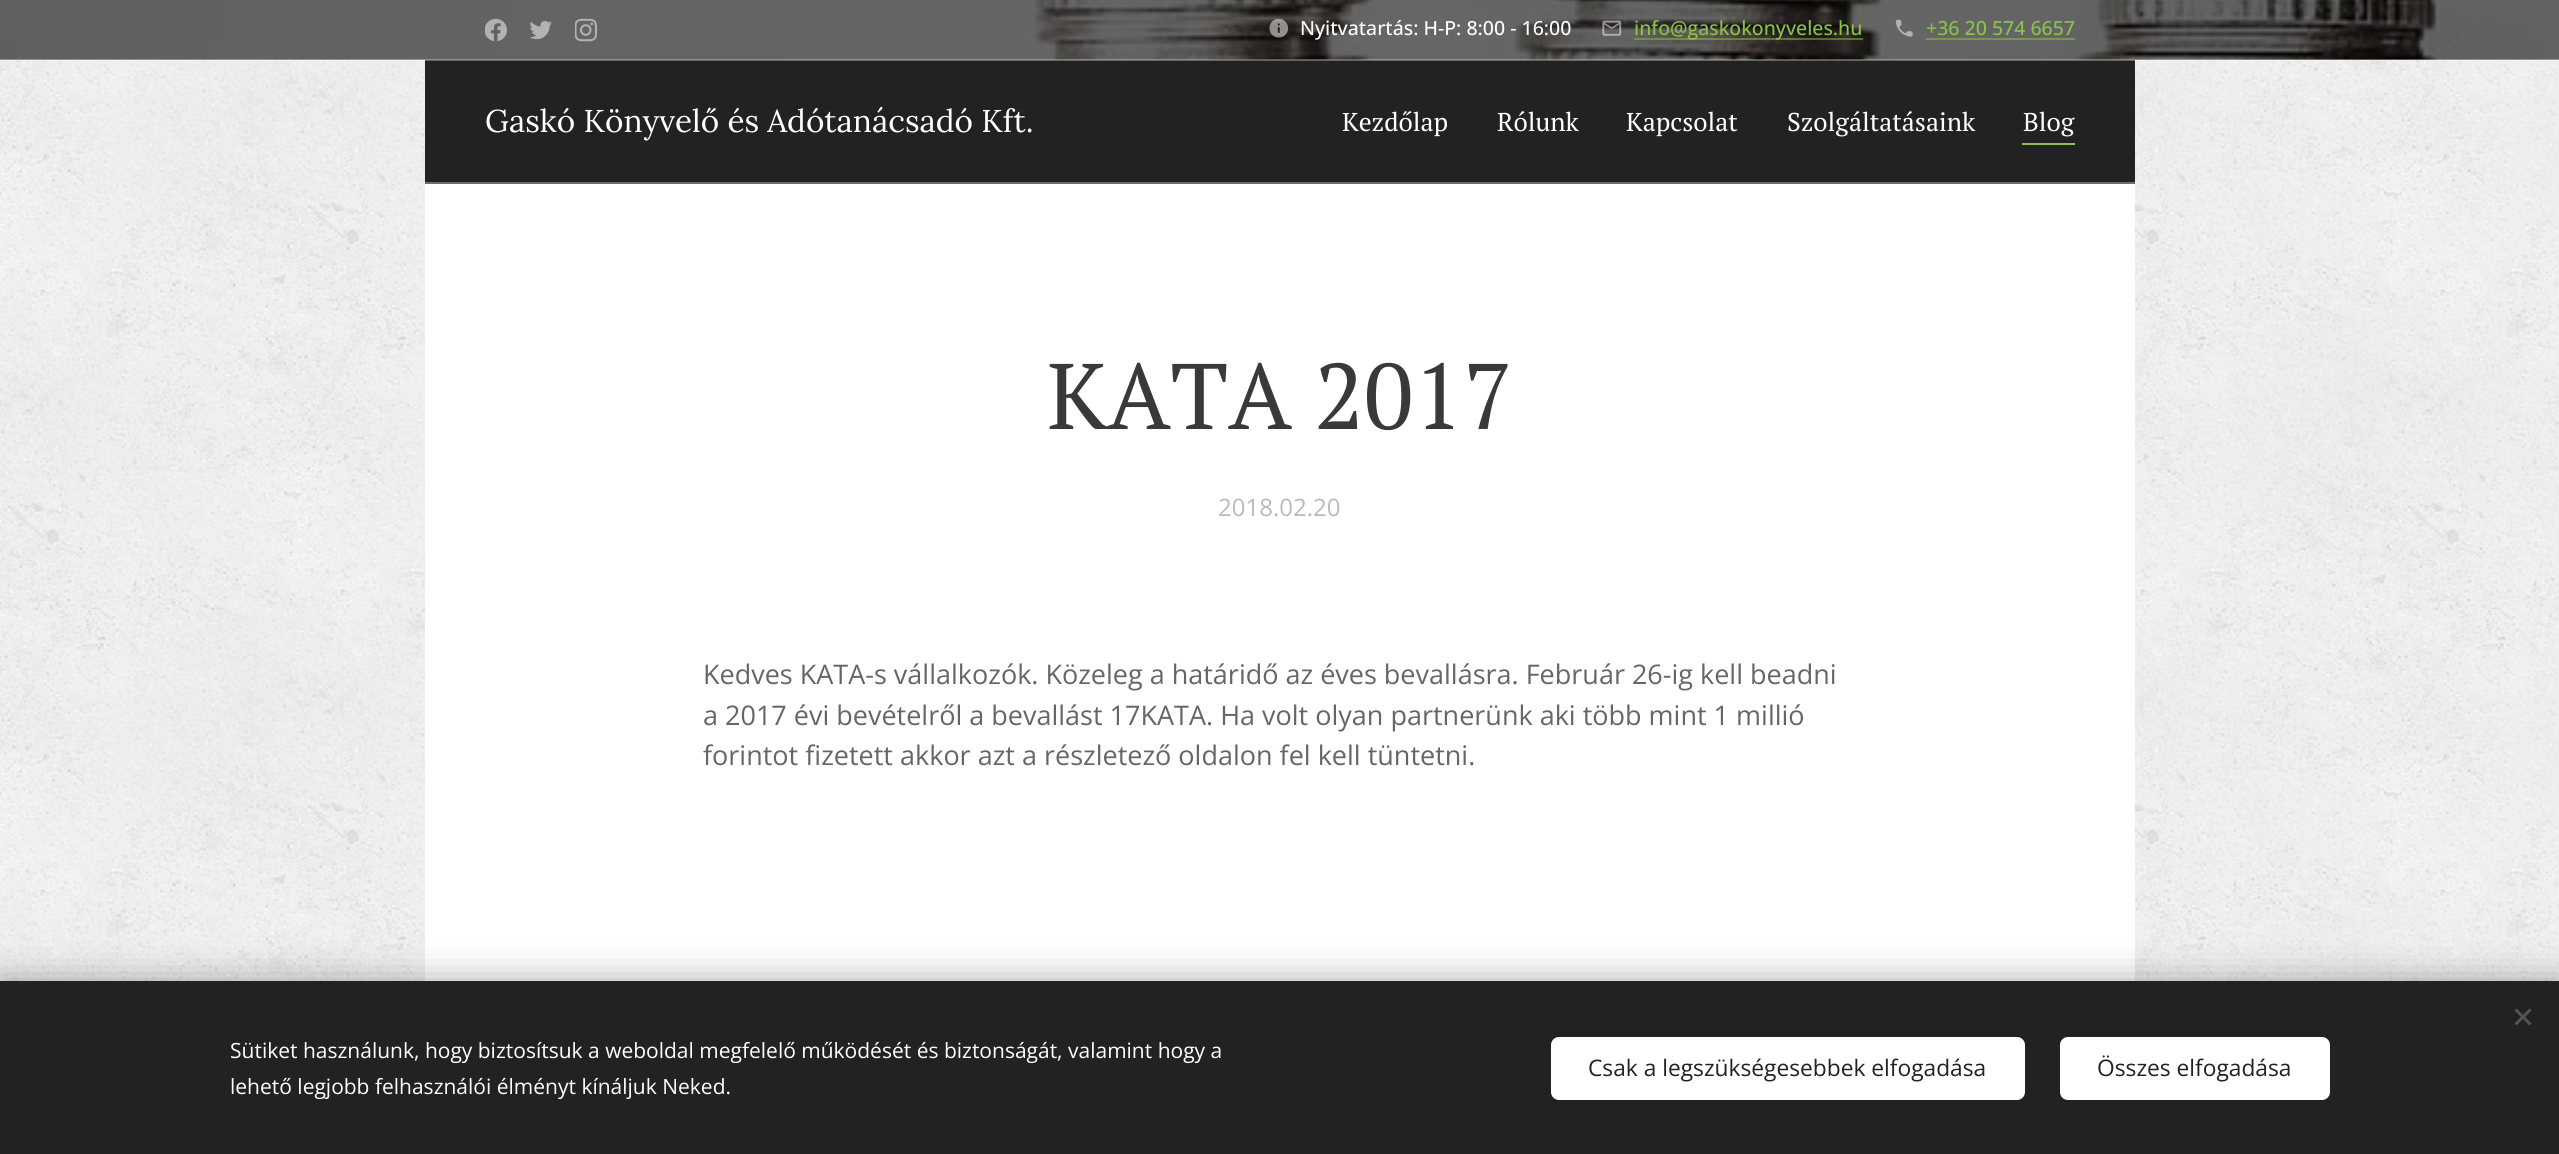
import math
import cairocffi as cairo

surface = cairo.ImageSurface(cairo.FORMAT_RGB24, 2559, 1154)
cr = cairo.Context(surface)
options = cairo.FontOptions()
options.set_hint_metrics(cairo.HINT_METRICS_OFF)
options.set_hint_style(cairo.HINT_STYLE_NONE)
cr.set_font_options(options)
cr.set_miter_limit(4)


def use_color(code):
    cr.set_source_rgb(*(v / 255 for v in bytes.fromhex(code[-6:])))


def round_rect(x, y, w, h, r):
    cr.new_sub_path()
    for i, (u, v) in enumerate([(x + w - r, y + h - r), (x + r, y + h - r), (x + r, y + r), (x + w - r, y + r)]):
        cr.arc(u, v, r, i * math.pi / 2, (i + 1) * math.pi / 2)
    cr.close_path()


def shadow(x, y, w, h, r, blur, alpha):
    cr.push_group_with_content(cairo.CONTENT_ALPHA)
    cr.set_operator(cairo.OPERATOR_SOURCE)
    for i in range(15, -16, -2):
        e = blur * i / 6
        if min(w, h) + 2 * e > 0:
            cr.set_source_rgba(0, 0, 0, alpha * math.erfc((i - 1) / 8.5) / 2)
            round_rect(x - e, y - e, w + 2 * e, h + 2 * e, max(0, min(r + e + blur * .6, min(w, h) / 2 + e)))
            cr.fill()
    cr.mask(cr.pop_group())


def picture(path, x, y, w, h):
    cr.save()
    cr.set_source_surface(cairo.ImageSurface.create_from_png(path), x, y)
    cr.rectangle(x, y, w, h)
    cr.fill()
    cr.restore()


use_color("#ffffff")
cr.paint()
picture("img1.png", 0, 0, 2559, 60)
picture("img2.png", 485, 18, 22, 24)
picture("img3.png", 530, 20, 22, 20)
picture("img4.png", 575, 18, 22, 24)
picture("img5.png", 1269, 18, 20, 20)
cr.select_font_face("Open Sans Medium")
cr.set_font_size(19.5)
use_color("#ffffff")
cr.move_to(1300, 35)
cr.show_text("Nyitvatartás: H-P: 8:00 - 16:00")
picture("img6.png", 1602, 20, 20, 16)
cr.set_source_rgba(0.545, 0.765, 0.29, 0.5)
cr.rectangle(1634, 38, 229, 2)
cr.fill()
use_color("#8bc34a")
cr.move_to(1634, 35)
cr.show_text("info@gaskokonyveles.hu")
picture("img7.png", 1895, 19, 18, 18)
cr.move_to(1926, 35)
cr.show_text("+36 20 574 6657")
use_color("#789457")
cr.rectangle(1926, 38, 149, 2)
cr.fill()
picture("img8.png", 0, 60, 2559, 921)
use_color("#222222")
cr.rectangle(425, 60, 1710, 122)
cr.fill()
cr.set_source_rgba(1, 1, 1, 0.3)
cr.rectangle(0, 59, 2559, 2)
cr.fill()
cr.select_font_face("Lora")
cr.set_font_size(31.5)
use_color("#ffffff")
cr.move_to(485, 132)
cr.show_text("Gaskó Könyvelő és Adótanácsadó Kft.")
cr.select_font_face("PT Serif")
cr.set_font_size(25.75)
cr.move_to(1342, 131)
cr.show_text("Kezdőlap")
cr.move_to(1497, 131)
cr.show_text("Rólunk")
cr.move_to(1626, 131)
cr.show_text("Kapcsolat")
cr.move_to(1787, 131)
cr.show_text("Szolgáltatásaink")
cr.move_to(2023, 131)
cr.show_text("Blog")
use_color("#8bc34a")
cr.rectangle(2022, 143, 53, 2)
cr.fill()
use_color("#6e6e6e")
cr.rectangle(425, 182, 1710, 2)
cr.fill()
use_color("#ffffff")
cr.rectangle(425, 184, 1710, 797)
cr.fill()
cr.set_font_size(93)
use_color("#393939")
cr.move_to(1047, 429)
cr.show_text("KATA 2017")
cr.select_font_face("Open Sans")
cr.set_font_size(24)
use_color("#bababa")
cr.move_to(1218, 516)
cr.show_text("2018.02.20")
cr.set_font_size(27)
use_color("#666666")
cr.move_to(703, 684)
cr.show_text("Kedves KATA-s vállalkozók. Közeleg a határidő az éves bevallásra. Február 26-ig kell beadni")
cr.move_to(703, 725)
cr.show_text("a 2017 évi bevételről a bevallást 17KATA. Ha volt olyan partnerünk aki több mint 1 millió")
cr.move_to(703, 765)
cr.show_text("forintot fizetett akkor azt a részletező oldalon fel kell tüntetni.")
use_color("#000000")
shadow(0, 981, 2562, 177, 0, 19, 0.33)
use_color("#222222")
cr.rectangle(0, 981, 2559, 173)
cr.fill()
use_color("#555555")
cr.new_path()
cr.move_to(2514.5, 1023.5)
cr.line_to(2529.5, 1008.5)
cr.line_to(2531.5, 1010.5)
cr.line_to(2516.5, 1025.5)
cr.close_path()
cr.fill()
cr.new_path()
cr.move_to(2516.5, 1008.5)
cr.line_to(2531.5, 1023.5)
cr.line_to(2529.5, 1025.5)
cr.line_to(2514.5, 1010.5)
cr.close_path()
cr.fill()
cr.set_font_size(21)
use_color("#ffffff")
cr.move_to(230, 1058)
cr.show_text("Sütiket használunk, hogy biztosítsuk a weboldal megfelelő működését és biztonságát, valamint hogy a")
cr.move_to(230, 1094)
cr.show_text("lehető legjobb felhasználói élményt kínáljuk Neked.")
round_rect(1551, 1037, 474, 63, 8)
cr.fill()
cr.set_font_size(22.75)
use_color("#222222")
cr.move_to(1588, 1076)
cr.show_text("Csak a legszükségesebbek elfogadása")
use_color("#ffffff")
round_rect(2060, 1037, 270, 63, 8)
cr.fill()
use_color("#222222")
cr.move_to(2097, 1076)
cr.show_text("Összes elfogadása")
surface.write_to_png("result.png")
